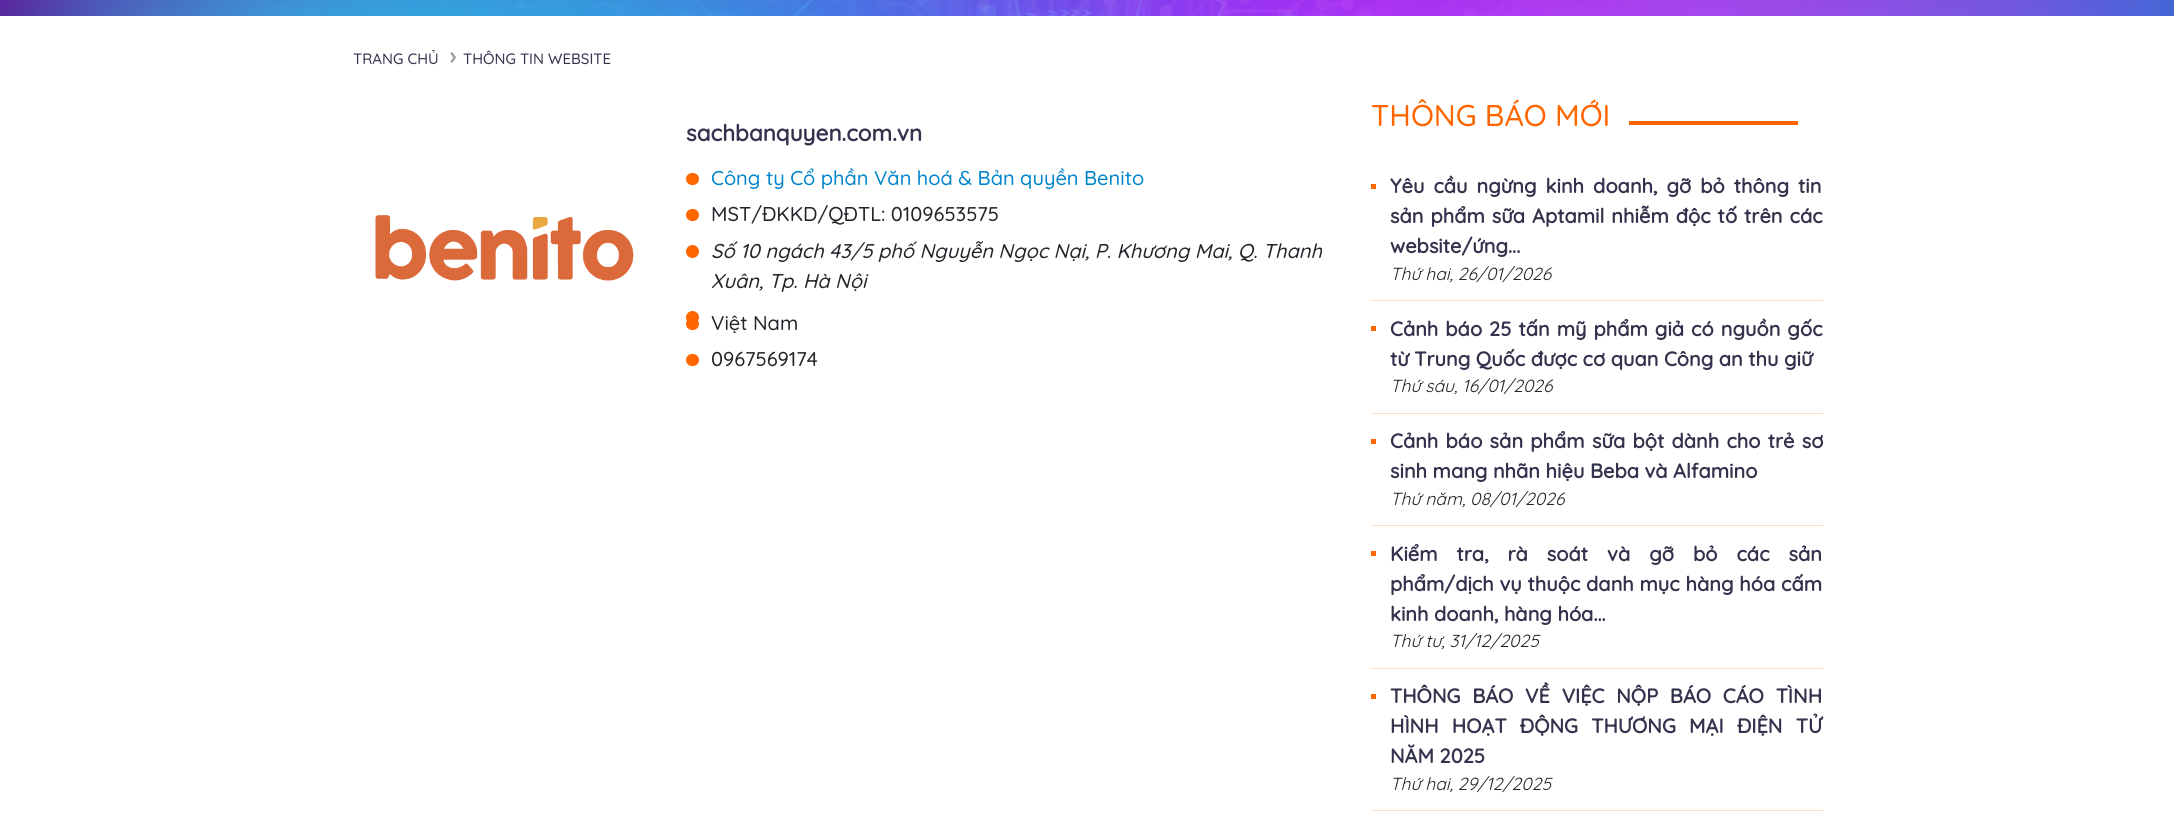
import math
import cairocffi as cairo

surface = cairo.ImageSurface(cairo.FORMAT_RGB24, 2174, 815)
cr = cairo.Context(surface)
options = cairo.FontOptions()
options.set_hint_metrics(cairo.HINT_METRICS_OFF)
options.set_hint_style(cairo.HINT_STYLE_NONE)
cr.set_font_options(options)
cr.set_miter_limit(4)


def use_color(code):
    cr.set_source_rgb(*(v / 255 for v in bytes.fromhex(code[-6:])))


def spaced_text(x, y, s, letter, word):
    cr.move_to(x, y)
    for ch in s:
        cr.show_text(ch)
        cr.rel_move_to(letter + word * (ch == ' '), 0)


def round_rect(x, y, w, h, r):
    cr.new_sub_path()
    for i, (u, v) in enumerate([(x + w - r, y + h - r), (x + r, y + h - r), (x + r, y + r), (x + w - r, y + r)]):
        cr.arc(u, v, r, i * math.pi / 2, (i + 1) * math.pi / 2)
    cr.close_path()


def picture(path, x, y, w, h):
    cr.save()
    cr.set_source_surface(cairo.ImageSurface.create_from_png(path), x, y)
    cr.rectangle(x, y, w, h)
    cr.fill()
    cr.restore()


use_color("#ffffff")
cr.paint()
picture("img1.png", 0, 0, 2174, 16)
cr.select_font_face("Quicksand Medium")
cr.set_font_size(15)
use_color("#33334d")
cr.move_to(353, 64)
cr.show_text("TRANG CHỦ")
cr.select_font_face("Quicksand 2", cairo.FONT_SLANT_NORMAL, cairo.FONT_WEIGHT_BOLD)
cr.set_font_size(25)
use_color("#a0a4a8")
cr.move_to(450, 64)
cr.show_text("›")
cr.select_font_face("Quicksand Medium")
cr.set_font_size(15)
use_color("#33334d")
cr.move_to(463, 64)
cr.show_text("THÔNG TIN WEBSITE")
picture("img2.png", 375, 215, 259, 66)
cr.select_font_face("Quicksand", cairo.FONT_SLANT_NORMAL, cairo.FONT_WEIGHT_BOLD)
cr.set_font_size(22.5)
cr.move_to(686, 141)
cr.show_text("sachbanquyen.com.vn")
use_color("#ff6600")
round_rect(686, 173, 13, 12, 6)
cr.fill()
cr.select_font_face("Quicksand Medium")
cr.set_font_size(20)
use_color("#0084cb")
cr.move_to(711, 185)
cr.show_text("Công ty Cổ phần Văn hoá & Bản quyền Benito")
use_color("#ff6600")
round_rect(686, 209, 13, 12, 6)
cr.fill()
use_color("#212529")
cr.move_to(711, 221)
cr.show_text("MST/ĐKKD/QĐTL: 0109653575")
use_color("#ff6600")
cr.new_path()
cr.arc(692.5, 251.5, 6.5, 0, 2 * math.pi)
cr.fill()
cr.select_font_face("Quicksand Medium", cairo.FONT_SLANT_ITALIC)
use_color("#212529")
cr.move_to(711, 258)
cr.show_text("Số 10 ngách 43/5 phố Nguyễn Ngọc Nại, P. Khương Mai, Q. Thanh")
cr.move_to(711, 288)
cr.show_text("Xuân, Tp. Hà Nội")
use_color("#ff6600")
cr.new_path()
cr.arc(692.5, 317.5, 6.5, 0, 2 * math.pi)
cr.fill()
round_rect(686, 318, 13, 12, 6)
cr.fill()
cr.select_font_face("Quicksand Medium")
use_color("#212529")
cr.move_to(711, 330)
cr.show_text("Việt Nam")
use_color("#ff6600")
round_rect(686, 354, 13, 12, 6)
cr.fill()
use_color("#212529")
cr.move_to(711, 366)
cr.show_text("0967569174")
cr.set_font_size(30)
use_color("#ff6600")
cr.move_to(1371, 126)
cr.show_text("THÔNG BÁO MỚI")
cr.rectangle(1629, 121, 169, 4)
cr.fill()
use_color("#ffdcc4")
cr.rectangle(1371, 300, 452, 1)
cr.fill()
use_color("#ff6600")
cr.rectangle(1371, 184, 5, 5)
cr.fill()
cr.select_font_face("Quicksand", cairo.FONT_SLANT_NORMAL, cairo.FONT_WEIGHT_BOLD)
cr.set_font_size(20)
use_color("#33334d")
spaced_text(1390, 193, "Yêu cầu ngừng kinh doanh, gỡ bỏ thông tin", 0, 3.5)
spaced_text(1390, 223, "sản phẩm sữa Aptamil nhiễm độc tố trên các", 0, 1.5)
cr.move_to(1390, 253)
cr.show_text("website/ứng...")
cr.select_font_face("Quicksand", cairo.FONT_SLANT_ITALIC)
cr.set_font_size(17.5)
use_color("#212529")
cr.move_to(1390, 280)
cr.show_text("Thứ hai, 26/01/2026")
use_color("#ffdcc4")
cr.rectangle(1371, 413, 452, 1)
cr.fill()
use_color("#ff6600")
cr.rectangle(1371, 326, 5, 5)
cr.fill()
cr.select_font_face("Quicksand", cairo.FONT_SLANT_NORMAL, cairo.FONT_WEIGHT_BOLD)
cr.set_font_size(20)
use_color("#33334d")
spaced_text(1390, 336, "Cảnh báo 25 tấn mỹ phẩm giả có nguồn gốc", 0, 1.5)
cr.move_to(1390, 366)
cr.show_text("từ Trung Quốc được cơ quan Công an thu giữ")
cr.select_font_face("Quicksand", cairo.FONT_SLANT_ITALIC)
cr.set_font_size(17.5)
use_color("#212529")
cr.move_to(1390, 392)
cr.show_text("Thứ sáu, 16/01/2026")
use_color("#ffdcc4")
cr.rectangle(1371, 525, 452, 1)
cr.fill()
use_color("#ff6600")
cr.rectangle(1371, 439, 5, 5)
cr.fill()
cr.select_font_face("Quicksand", cairo.FONT_SLANT_NORMAL, cairo.FONT_WEIGHT_BOLD)
cr.set_font_size(20)
use_color("#33334d")
spaced_text(1390, 448, "Cảnh báo sản phẩm sữa bột dành cho trẻ sơ", 0, 1.75)
cr.move_to(1390, 478)
cr.show_text("sinh mang nhãn hiệu Beba và Alfamino")
cr.select_font_face("Quicksand", cairo.FONT_SLANT_ITALIC)
cr.set_font_size(17.5)
use_color("#212529")
cr.move_to(1390, 505)
cr.show_text("Thứ năm, 08/01/2026")
use_color("#ffdcc4")
cr.rectangle(1371, 668, 452, 1)
cr.fill()
use_color("#ff6600")
cr.rectangle(1371, 551, 5, 5)
cr.fill()
cr.select_font_face("Quicksand", cairo.FONT_SLANT_NORMAL, cairo.FONT_WEIGHT_BOLD)
cr.set_font_size(20)
use_color("#33334d")
spaced_text(1390, 561, "Kiểm tra, rà soát và gỡ bỏ các sản", 0, 13.5)
spaced_text(1390, 591, "phẩm/dịch vụ thuộc danh mục hàng hóa cấm", 0, 0.25)
cr.move_to(1390, 621)
cr.show_text("kinh doanh, hàng hóa...")
cr.select_font_face("Quicksand", cairo.FONT_SLANT_ITALIC)
cr.set_font_size(17.5)
use_color("#212529")
cr.move_to(1390, 647)
cr.show_text("Thứ tư, 31/12/2025")
use_color("#ffdcc4")
cr.rectangle(1371, 810, 452, 1)
cr.fill()
use_color("#ff6600")
cr.rectangle(1371, 694, 5, 5)
cr.fill()
cr.select_font_face("Quicksand", cairo.FONT_SLANT_NORMAL, cairo.FONT_WEIGHT_BOLD)
cr.set_font_size(20)
use_color("#33334d")
spaced_text(1390, 703, "THÔNG BÁO VỀ VIỆC NỘP BÁO CÁO TÌNH", 0, 6.25)
spaced_text(1390, 733, "HÌNH HOẠT ĐỘNG THƯƠNG MẠI ĐIỆN TỬ", 0, 7.75)
cr.move_to(1390, 763)
cr.show_text("NĂM 2025")
cr.select_font_face("Quicksand", cairo.FONT_SLANT_ITALIC)
cr.set_font_size(17.5)
use_color("#212529")
cr.move_to(1390, 790)
cr.show_text("Thứ hai, 29/12/2025")
surface.write_to_png("result.png")
